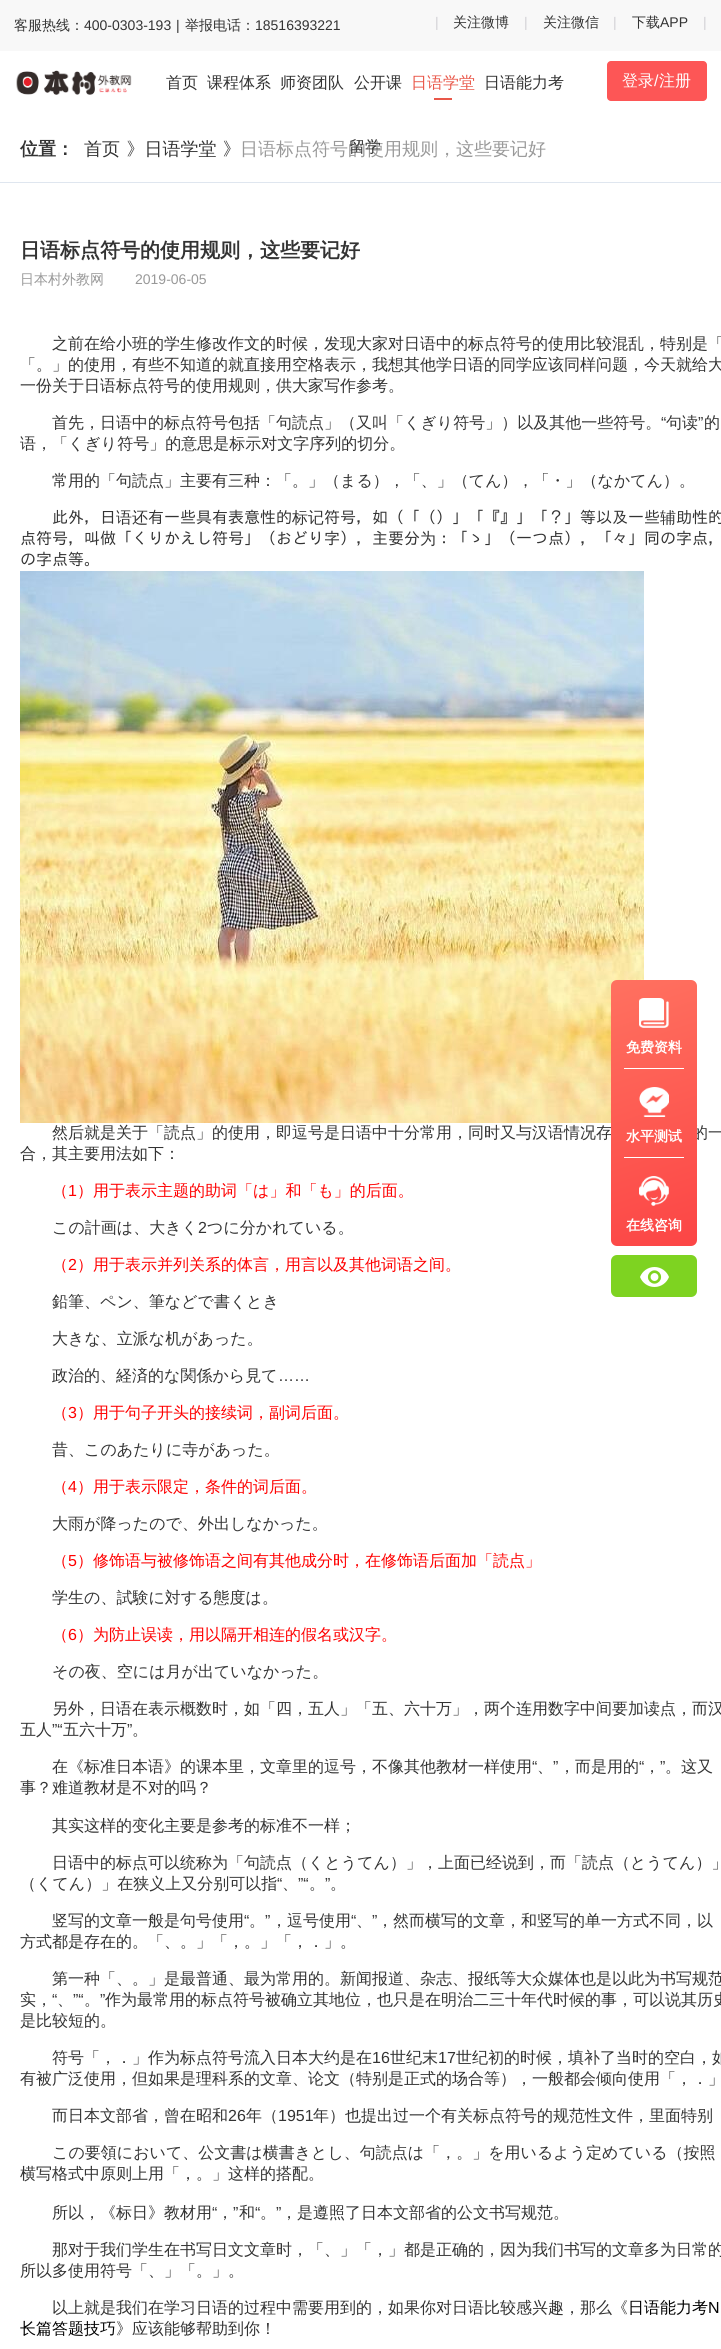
import math
import cairocffi as cairo

surface = cairo.ImageSurface(cairo.FORMAT_RGB24, 721, 2349)
cr = cairo.Context(surface)
options = cairo.FontOptions()
options.set_hint_metrics(cairo.HINT_METRICS_OFF)
options.set_hint_style(cairo.HINT_STYLE_NONE)
cr.set_font_options(options)
cr.set_miter_limit(4)


def use_color(code):
    cr.set_source_rgb(*(v / 255 for v in bytes.fromhex(code[-6:])))


def spaced_text(x, y, s, letter, word):
    cr.move_to(x, y)
    for ch in s:
        cr.show_text(ch)
        cr.rel_move_to(letter + word * (ch == ' '), 0)


def round_rect(x, y, w, h, r):
    cr.new_sub_path()
    for i, (u, v) in enumerate([(x + w - r, y + h - r), (x + r, y + h - r), (x + r, y + r), (x + w - r, y + r)]):
        cr.arc(u, v, r, i * math.pi / 2, (i + 1) * math.pi / 2)
    cr.close_path()


def picture(path, x, y, w, h):
    cr.save()
    cr.set_source_surface(cairo.ImageSurface.create_from_png(path), x, y)
    cr.rectangle(x, y, w, h)
    cr.fill()
    cr.restore()


use_color("#ffffff")
cr.paint()
use_color("#f8f8f8")
cr.rectangle(0, 0, 721, 51)
cr.fill()
cr.select_font_face("WenQuanYi Zen Hei Medium")
cr.set_font_size(14)
use_color("#333333")
cr.move_to(14, 30)
cr.show_text("客服热线：")
cr.select_font_face("Liberation Sans")
cr.move_to(84, 30)
cr.show_text("400-0303-193")
cr.move_to(176, 30)
cr.show_text("|")
cr.select_font_face("WenQuanYi Zen Hei Medium")
cr.move_to(185, 30)
cr.show_text("举报电话：")
cr.select_font_face("Liberation Sans")
cr.move_to(255, 30)
cr.show_text("18516393221")
use_color("#d2d1d5")
cr.move_to(435, 27)
cr.show_text("|")
cr.select_font_face("WenQuanYi Zen Hei Medium")
use_color("#333333")
cr.move_to(453, 27)
cr.show_text("关注微博")
cr.select_font_face("Liberation Sans")
use_color("#d2d1d5")
cr.move_to(524, 27)
cr.show_text("|")
cr.select_font_face("WenQuanYi Zen Hei Medium")
use_color("#333333")
cr.move_to(543, 27)
cr.show_text("关注微信")
cr.select_font_face("Liberation Sans")
use_color("#d2d1d5")
cr.move_to(613, 27)
cr.show_text("|")
cr.select_font_face("WenQuanYi Zen Hei Medium")
use_color("#333333")
cr.move_to(632, 27)
cr.show_text("下载")
cr.select_font_face("Liberation Sans")
cr.move_to(660, 27)
cr.show_text("APP")
use_color("#d2d1d5")
cr.move_to(703, 27)
cr.show_text("|")
picture("img1.png", 16, 70, 116, 25)
cr.select_font_face("WenQuanYi Zen Hei Medium")
cr.set_font_size(16)
use_color("#333333")
cr.move_to(166, 88)
cr.show_text("首页")
cr.move_to(207, 88)
cr.show_text("课程体系")
cr.move_to(280, 88)
cr.show_text("师资团队")
cr.move_to(354, 88)
cr.show_text("公开课")
use_color("#e95749")
cr.move_to(411, 88)
cr.show_text("日语学堂")
cr.rectangle(434, 98, 18, 2)
cr.fill()
use_color("#333333")
cr.move_to(484, 88)
cr.show_text("日语能力考")
cr.set_font_size(18)
use_color("#999999")
cr.move_to(240, 155)
cr.show_text("日语标点符号的使用规则，这些要记好")
cr.set_font_size(16)
use_color("#333333")
cr.move_to(349, 152)
cr.show_text("留学")
use_color("#fd5656")
round_rect(607, 61, 100, 40, 4)
cr.fill()
use_color("#ffffff")
cr.move_to(622, 86)
cr.show_text("登录")
cr.select_font_face("Liberation Sans")
cr.move_to(654, 86)
cr.show_text("/")
cr.select_font_face("WenQuanYi Zen Hei Medium")
cr.move_to(659, 86)
cr.show_text("注册")
use_color("#dfe6ef")
cr.rectangle(0, 182, 721, 1)
cr.fill()
cr.select_font_face("WenQuanYi Zen Hei", cairo.FONT_SLANT_NORMAL, cairo.FONT_WEIGHT_BOLD)
cr.set_font_size(18)
use_color("#333333")
cr.move_to(20, 155)
cr.show_text("位置：")
cr.select_font_face("WenQuanYi Zen Hei Medium")
spaced_text(84, 155, "首页 》日语学堂 》", 0, 1)
cr.select_font_face("WenQuanYi Zen Hei", cairo.FONT_SLANT_NORMAL, cairo.FONT_WEIGHT_BOLD)
cr.set_font_size(20)
cr.move_to(20, 257)
cr.show_text("日语标点符号的使用规则，这些要记好")
cr.select_font_face("WenQuanYi Zen Hei Medium")
cr.set_font_size(14)
use_color("#999999")
cr.move_to(20, 284)
cr.show_text("日本村外教网")
cr.select_font_face("Liberation Sans")
cr.move_to(135, 284)
cr.show_text("2019-06-05")
cr.select_font_face("WenQuanYi Zen Hei Medium")
cr.set_font_size(16)
use_color("#333333")
cr.move_to(52, 349)
cr.show_text("之前在给小班的学生修改作文的时候，发现大家对日语中的标点符号的使用比较混乱，特别是「")
cr.move_to(20, 370)
cr.show_text("「。」的使用，有些不知道的就直接用空格表示，我想其他学日语的同学应该同样问题，今天就给大")
cr.move_to(20, 391)
cr.show_text("一份关于日语标点符号的使用规则，供大家写作参考。")
cr.move_to(52, 428)
cr.show_text("首先，日语中的标点符号包括「句読点」（又叫「くぎり符号」）以及其他一些符号。")
cr.select_font_face("Liberation Sans")
cr.move_to(661, 428)
cr.show_text("“")
cr.select_font_face("WenQuanYi Zen Hei Medium")
cr.move_to(666, 428)
cr.show_text("句读")
cr.select_font_face("Liberation Sans")
cr.move_to(698, 428)
cr.show_text("”")
cr.select_font_face("WenQuanYi Zen Hei Medium")
cr.move_to(704, 428)
cr.show_text("的")
cr.move_to(20, 449)
cr.show_text("语，「くぎり符号」的意思是标示对文字序列的切分。")
cr.move_to(52, 486)
cr.show_text("常用的「句読点」主要有三种：「。」（まる），「、」（てん），「・」（なかてん）。")
cr.select_font_face("IPAGothic")
cr.move_to(52, 523)
cr.show_text("此外，日")
cr.select_font_face("WenQuanYi Zen Hei Medium")
cr.move_to(116, 523)
cr.show_text("语还")
cr.select_font_face("IPAGothic")
cr.move_to(148, 523)
cr.show_text("有一些具有表意性的")
cr.select_font_face("WenQuanYi Zen Hei Medium")
cr.move_to(292, 523)
cr.show_text("标记")
cr.select_font_face("IPAGothic")
cr.move_to(324, 523)
cr.show_text("符号，如（「（）」「『』」「？」等以及一些")
cr.select_font_face("WenQuanYi Zen Hei Medium")
cr.move_to(660, 523)
cr.show_text("辅")
cr.select_font_face("IPAGothic")
cr.move_to(676, 523)
cr.show_text("助性的")
cr.move_to(20, 544)
cr.show_text("点符号，叫做「くりかえし符号」（おどり字），主要分")
cr.select_font_face("WenQuanYi Zen Hei Medium")
cr.move_to(420, 544)
cr.show_text("为")
cr.select_font_face("IPAGothic")
cr.move_to(436, 544)
cr.show_text("：「ゝ」（一つ点），「々」同の字点，")
cr.move_to(20, 565)
cr.show_text("の字点等。")
picture("img2.png", 20, 571, 624, 552)
cr.select_font_face("WenQuanYi Zen Hei Medium")
cr.move_to(52, 1138)
cr.show_text("然后就是关于「読点」的使用，即逗号是日语中十分常用，同时又与汉语情况存")
cr.move_to(692, 1138)
cr.show_text("的一")
cr.move_to(20, 1159)
cr.show_text("合，其主要用法如下：")
use_color("#ff0000")
cr.move_to(52, 1196)
cr.show_text("（")
cr.select_font_face("Liberation Sans")
cr.move_to(68, 1196)
cr.show_text("1")
cr.select_font_face("WenQuanYi Zen Hei Medium")
cr.move_to(77, 1196)
cr.show_text("）用于表示主题的助词「は」和「も」的后面。")
use_color("#333333")
cr.move_to(52, 1233)
cr.show_text("この計画は、大きく")
cr.select_font_face("Liberation Sans")
cr.move_to(198, 1233)
cr.show_text("2")
cr.select_font_face("WenQuanYi Zen Hei Medium")
cr.move_to(207, 1233)
cr.show_text("つに分かれている。")
use_color("#ff0000")
cr.move_to(52, 1270)
cr.show_text("（")
cr.select_font_face("Liberation Sans")
cr.move_to(68, 1270)
cr.show_text("2")
cr.select_font_face("WenQuanYi Zen Hei Medium")
cr.move_to(77, 1270)
cr.show_text("）用于表示并列关系的体言，用言以及其他词语之间。")
use_color("#333333")
cr.move_to(52, 1307)
cr.show_text("鉛筆、ペン、筆などで書くとき")
cr.move_to(52, 1344)
cr.show_text("大きな、立派な机があった。")
cr.move_to(52, 1381)
cr.show_text("政治的、経済的な関係から見て")
cr.select_font_face("Liberation Sans")
cr.move_to(278, 1381)
cr.show_text("……")
cr.select_font_face("WenQuanYi Zen Hei Medium")
use_color("#ff0000")
cr.move_to(52, 1418)
cr.show_text("（")
cr.select_font_face("Liberation Sans")
cr.move_to(68, 1418)
cr.show_text("3")
cr.select_font_face("WenQuanYi Zen Hei Medium")
cr.move_to(77, 1418)
cr.show_text("）用于句子开头的接续词，副词后面。")
use_color("#333333")
cr.move_to(52, 1455)
cr.show_text("昔、このあたりに寺があった。")
use_color("#ff0000")
cr.move_to(52, 1492)
cr.show_text("（")
cr.select_font_face("Liberation Sans")
cr.move_to(68, 1492)
cr.show_text("4")
cr.select_font_face("WenQuanYi Zen Hei Medium")
cr.move_to(77, 1492)
cr.show_text("）用于表示限定，条件的词后面。")
use_color("#333333")
cr.move_to(52, 1529)
cr.show_text("大雨が降ったので、外出しなかった。")
use_color("#ff0000")
cr.move_to(52, 1566)
cr.show_text("（")
cr.select_font_face("Liberation Sans")
cr.move_to(68, 1566)
cr.show_text("5")
cr.select_font_face("WenQuanYi Zen Hei Medium")
cr.move_to(77, 1566)
cr.show_text("）修饰语与被修饰语之间有其他成分时，在修饰语后面加「読点」")
use_color("#333333")
cr.move_to(52, 1603)
cr.show_text("学生の、試験に対する態度は。")
use_color("#ff0000")
cr.move_to(52, 1640)
cr.show_text("（")
cr.select_font_face("Liberation Sans")
cr.move_to(68, 1640)
cr.show_text("6")
cr.select_font_face("WenQuanYi Zen Hei Medium")
cr.move_to(77, 1640)
cr.show_text("）为防止误读，用以隔开相连的假名或汉字。")
use_color("#333333")
cr.move_to(52, 1677)
cr.show_text("その夜、空には月が出ていなかった。")
cr.move_to(52, 1714)
cr.show_text("另外，日语在表示概数时，如「四，五人」「五、六十万」，两个连用数字中间要加读点，而汉")
cr.move_to(20, 1735)
cr.show_text("五人")
cr.select_font_face("Liberation Sans")
cr.move_to(52, 1735)
cr.show_text("”“")
cr.select_font_face("WenQuanYi Zen Hei Medium")
cr.move_to(63, 1735)
cr.show_text("五六十万")
cr.select_font_face("Liberation Sans")
cr.move_to(127, 1735)
cr.show_text("”")
cr.select_font_face("WenQuanYi Zen Hei Medium")
cr.move_to(132, 1735)
cr.show_text("。")
cr.move_to(52, 1772)
cr.show_text("在《标准日本语》的课本里，文章里的逗号，不像其他教材一样使用")
cr.select_font_face("Liberation Sans")
cr.move_to(532, 1772)
cr.show_text("“")
cr.move_to(553, 1772)
cr.show_text("”")
cr.select_font_face("WenQuanYi Zen Hei Medium")
cr.move_to(559, 1772)
cr.show_text("，而是用的")
cr.select_font_face("Liberation Sans")
cr.move_to(639, 1772)
cr.show_text("“")
cr.move_to(660, 1772)
cr.show_text("”")
cr.select_font_face("WenQuanYi Zen Hei Medium")
cr.move_to(665, 1772)
cr.show_text("。这又")
cr.move_to(537, 1772)
cr.show_text("、")
cr.move_to(644, 1772)
cr.show_text("，")
cr.move_to(20, 1793)
cr.show_text("事？难道教材是不对的吗？")
cr.move_to(52, 1831)
cr.show_text("其实这样的变化主要是参考的标准不一样；")
cr.move_to(52, 1868)
cr.show_text("日语中的标点可以统称为「句読点（くとうてん）」，上面已经说到，而「読点（とうてん）」")
cr.move_to(20, 1889)
cr.show_text("（くてん）」在狭义上又分别可以指")
cr.select_font_face("Liberation Sans")
cr.move_to(277, 1889)
cr.show_text("“")
cr.move_to(298, 1889)
cr.show_text("”“")
cr.move_to(325, 1889)
cr.show_text("”")
cr.select_font_face("WenQuanYi Zen Hei Medium")
cr.move_to(282, 1889)
cr.show_text("、")
cr.move_to(309, 1889)
cr.show_text("。")
cr.move_to(330, 1889)
cr.show_text("。")
cr.move_to(52, 1926)
cr.show_text("竖写的文章一般是句号使用")
cr.select_font_face("Liberation Sans")
cr.move_to(244, 1926)
cr.show_text("“")
cr.move_to(265, 1926)
cr.show_text("”")
cr.select_font_face("WenQuanYi Zen Hei Medium")
cr.move_to(271, 1926)
cr.show_text("，逗号使用")
cr.select_font_face("Liberation Sans")
cr.move_to(351, 1926)
cr.show_text("“")
cr.move_to(372, 1926)
cr.show_text("”")
cr.select_font_face("WenQuanYi Zen Hei Medium")
cr.move_to(377, 1926)
cr.show_text("，然而横写的文章，和竖写的单一方式不同，以")
cr.move_to(249, 1926)
cr.show_text("。")
cr.move_to(356, 1926)
cr.show_text("、")
cr.move_to(20, 1947)
cr.show_text("方式都是存在的。「、。」「，。」「，．」。")
cr.move_to(52, 1984)
cr.show_text("第一种「、。」是最普通、最为常用的。新闻报道、杂志、报纸等大众媒体也是以此为书写规范")
cr.move_to(20, 2005)
cr.show_text("实，")
cr.select_font_face("Liberation Sans")
cr.move_to(52, 2005)
cr.show_text("“")
cr.move_to(73, 2005)
cr.show_text("”“")
cr.move_to(100, 2005)
cr.show_text("”")
cr.select_font_face("WenQuanYi Zen Hei Medium")
cr.move_to(105, 2005)
cr.show_text("作为最常用的标点符号被确立其地位，也只是在明治二三十年代时候的事，可以说其历史")
cr.move_to(57, 2005)
cr.show_text("、")
cr.move_to(84, 2005)
cr.show_text("。")
cr.move_to(20, 2026)
cr.show_text("是比较短的。")
cr.move_to(52, 2063)
cr.show_text("符号「，．」作为标点符号流入日本大约是在")
cr.select_font_face("Liberation Sans")
cr.move_to(372, 2063)
cr.show_text("16")
cr.select_font_face("WenQuanYi Zen Hei Medium")
cr.move_to(390, 2063)
cr.show_text("世纪末")
cr.select_font_face("Liberation Sans")
cr.move_to(438, 2063)
cr.show_text("17")
cr.select_font_face("WenQuanYi Zen Hei Medium")
cr.move_to(456, 2063)
cr.show_text("世纪初的时候，填补了当时的空白，如")
cr.move_to(20, 2084)
cr.show_text("有被广泛使用，但如果是理科系的文章、论文（特别是正式的场合等），一般都会倾向使用「，．」")
cr.move_to(52, 2121)
cr.show_text("而日本文部省，曾在昭和")
cr.select_font_face("Liberation Sans")
cr.move_to(228, 2121)
cr.show_text("26")
cr.select_font_face("WenQuanYi Zen Hei Medium")
cr.move_to(246, 2121)
cr.show_text("年（")
cr.select_font_face("Liberation Sans")
cr.move_to(278, 2121)
cr.show_text("1951")
cr.select_font_face("WenQuanYi Zen Hei Medium")
cr.move_to(313, 2121)
cr.show_text("年）也提出过一个有关标点符号的规范性文件，里面特别")
cr.move_to(52, 2158)
cr.show_text("この要領において、公文書は横書きとし、句読点は「，。」を用いるよう定めている（按照")
cr.move_to(20, 2179)
cr.show_text("横写格式中原则上用「，。」这样的搭配。")
cr.move_to(52, 2218)
cr.show_text("所以，《标日》教材用")
cr.select_font_face("Liberation Sans")
cr.move_to(212, 2218)
cr.show_text("“")
cr.move_to(233, 2218)
cr.show_text("”")
cr.select_font_face("WenQuanYi Zen Hei Medium")
cr.move_to(239, 2218)
cr.show_text("和")
cr.select_font_face("Liberation Sans")
cr.move_to(255, 2218)
cr.show_text("“")
cr.move_to(276, 2218)
cr.show_text("”")
cr.select_font_face("WenQuanYi Zen Hei Medium")
cr.move_to(281, 2218)
cr.show_text("，是遵照了日本文部省的公文书写规范。")
cr.move_to(217, 2218)
cr.show_text("，")
cr.move_to(260, 2218)
cr.show_text("。")
cr.move_to(52, 2255)
cr.show_text("那对于我们学生在书写日文文章时，「、」「，」都是正确的，因为我们书写的文章多为日常的")
cr.move_to(20, 2276)
cr.show_text("所以多使用符号「、」「。」。")
cr.move_to(52, 2313)
cr.show_text("以上就是我们在学习日语的过程中需要用到的，如果你对日语比较感兴趣，那么《")
use_color("#000000")
cr.move_to(628, 2313)
cr.show_text("日语能力考")
cr.select_font_face("Liberation Sans")
cr.move_to(708, 2313)
cr.show_text("N")
cr.select_font_face("WenQuanYi Zen Hei Medium")
cr.move_to(20, 2334)
cr.show_text("长篇答题技巧")
use_color("#333333")
cr.move_to(116, 2334)
cr.show_text("》应该能够帮助到你！")
gradient = cairo.LinearGradient(609, 981, 699, 1245)
gradient.add_color_stop_rgba(0, 1, 0.443, 0.376, 1)
gradient.add_color_stop_rgba(1, 0.988, 0.271, 0.271, 1)
cr.set_source(gradient)
round_rect(611, 980, 86, 266, 6)
cr.fill()
picture("img3.png", 639, 998, 30, 30)
use_color("#ffffff")
cr.rectangle(624, 1068, 60, 1)
cr.fill()
cr.select_font_face("WenQuanYi Zen Hei", cairo.FONT_SLANT_NORMAL, cairo.FONT_WEIGHT_BOLD)
cr.set_font_size(14)
cr.move_to(626, 1052)
cr.show_text("免费资料")
picture("img4.png", 639, 1087, 30, 30)
cr.rectangle(624, 1157, 60, 1)
cr.fill()
cr.move_to(626, 1141)
cr.show_text("水平测试")
picture("img5.png", 639, 1176, 30, 30)
cr.move_to(626, 1230)
cr.show_text("在线咨询")
use_color("#7ed321")
round_rect(611, 1255, 86, 42, 6)
cr.fill()
picture("img6.png", 640, 1267, 29, 20)
surface.write_to_png("result.png")
